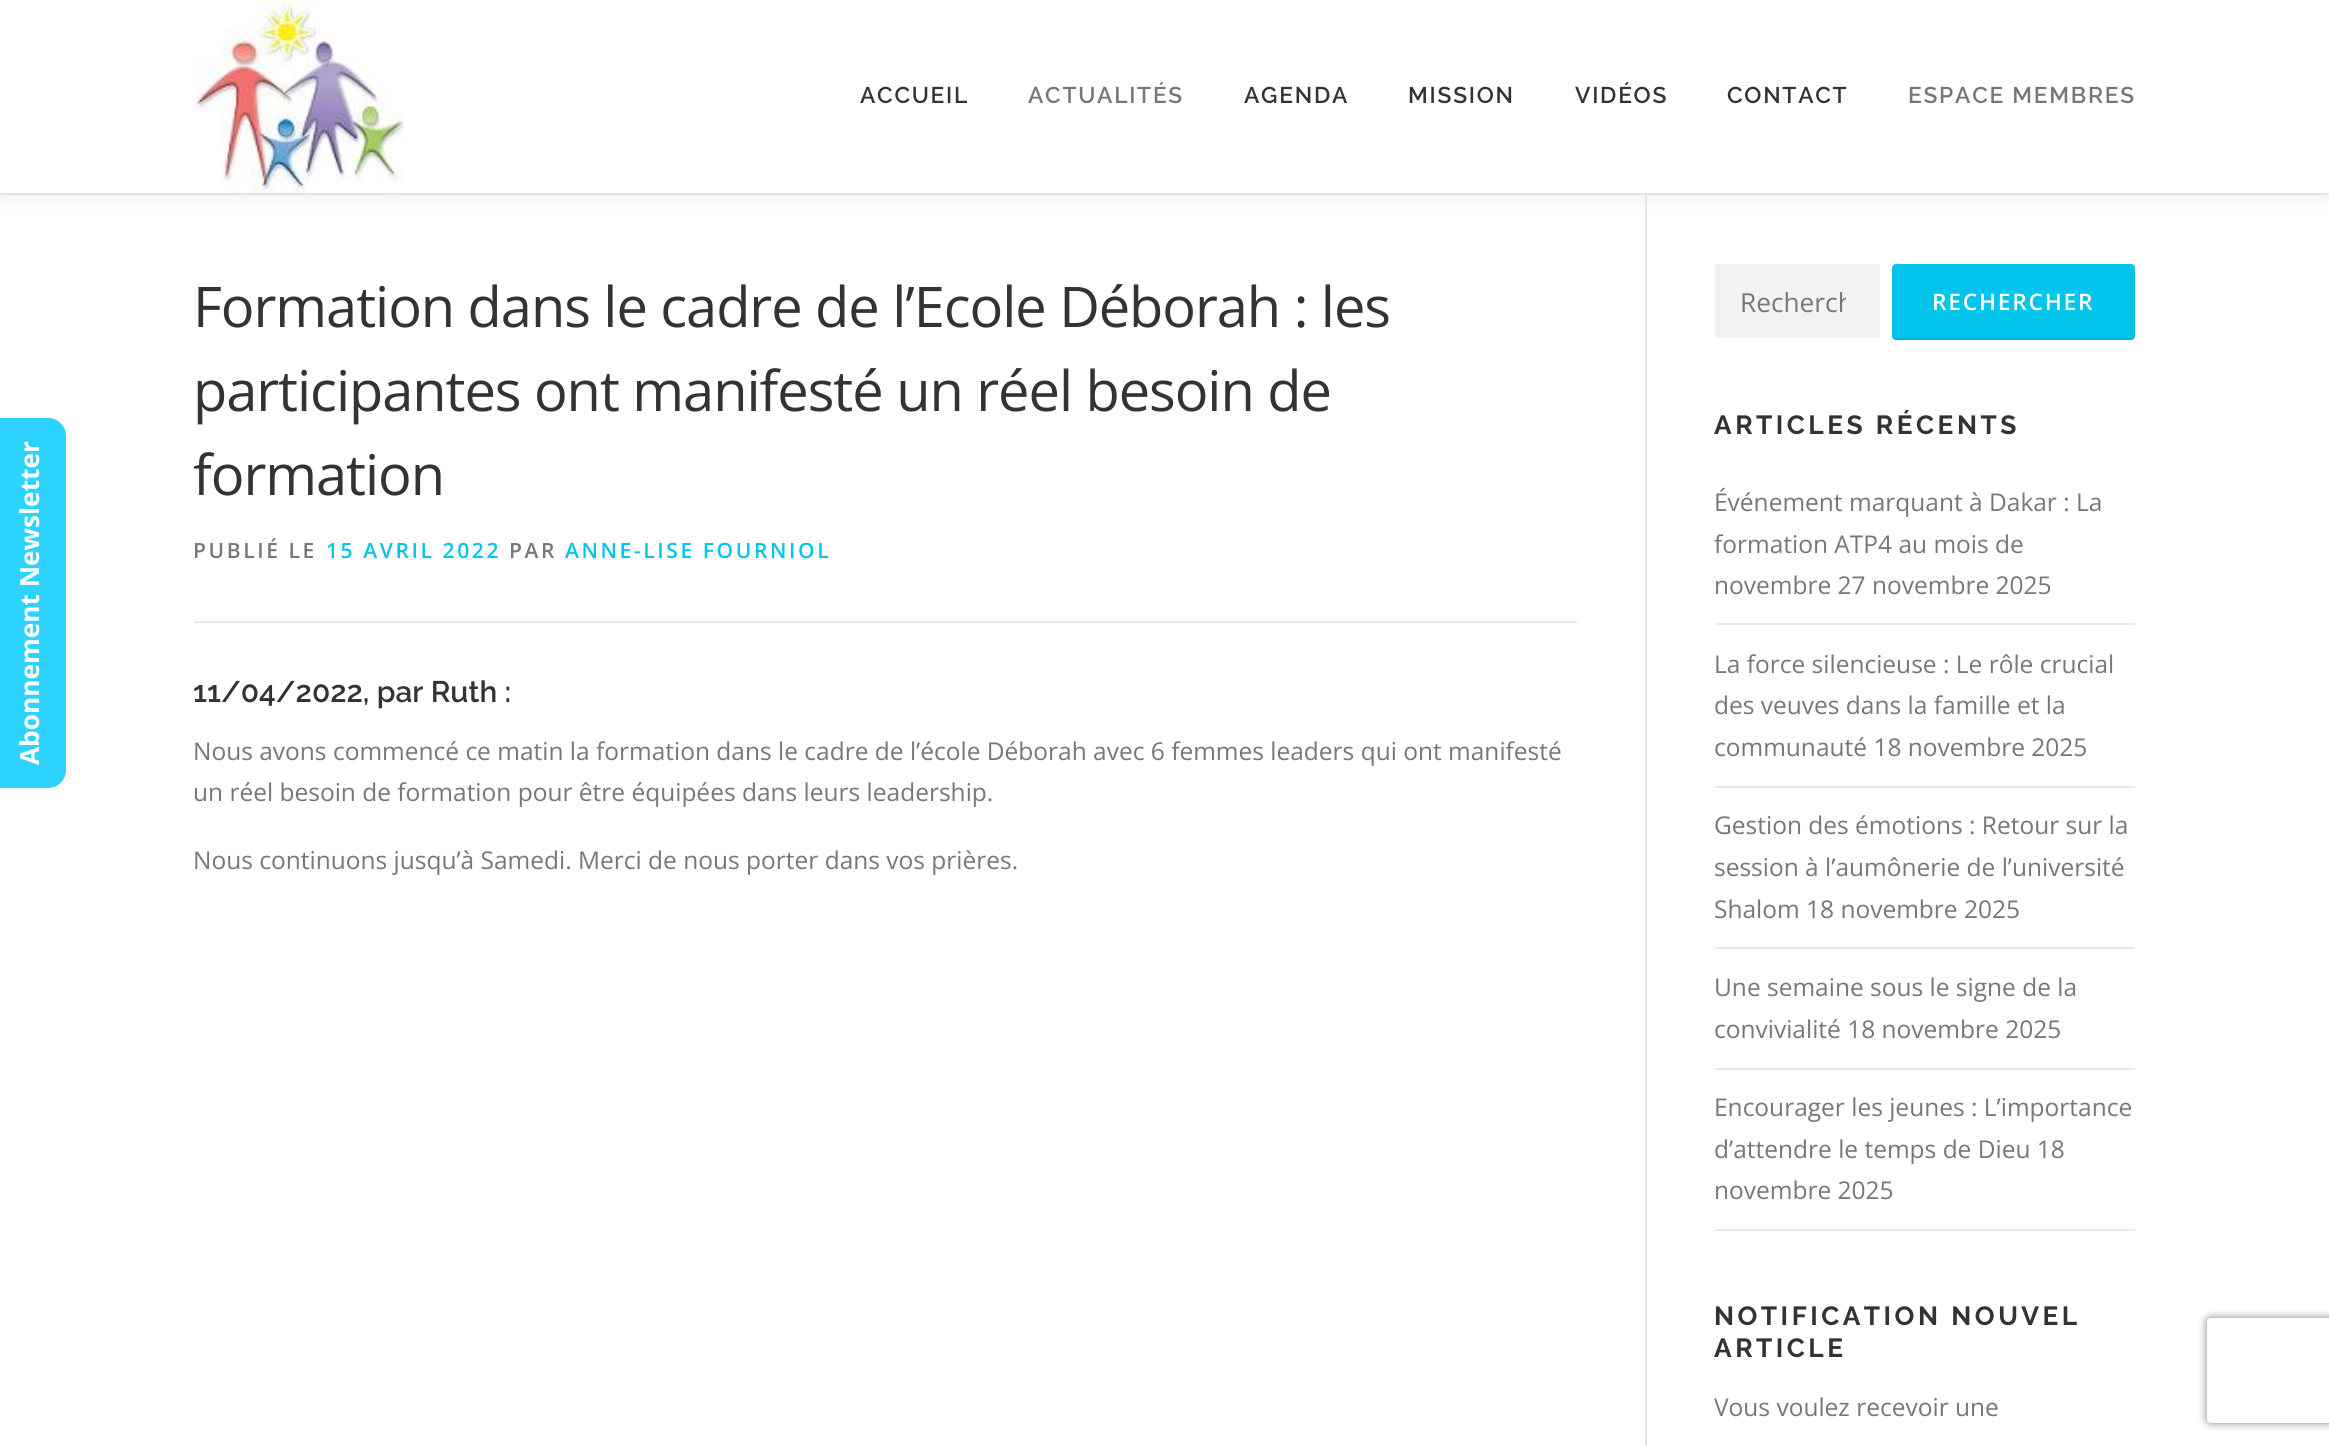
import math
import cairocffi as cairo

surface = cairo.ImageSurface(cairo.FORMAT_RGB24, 2329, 1446)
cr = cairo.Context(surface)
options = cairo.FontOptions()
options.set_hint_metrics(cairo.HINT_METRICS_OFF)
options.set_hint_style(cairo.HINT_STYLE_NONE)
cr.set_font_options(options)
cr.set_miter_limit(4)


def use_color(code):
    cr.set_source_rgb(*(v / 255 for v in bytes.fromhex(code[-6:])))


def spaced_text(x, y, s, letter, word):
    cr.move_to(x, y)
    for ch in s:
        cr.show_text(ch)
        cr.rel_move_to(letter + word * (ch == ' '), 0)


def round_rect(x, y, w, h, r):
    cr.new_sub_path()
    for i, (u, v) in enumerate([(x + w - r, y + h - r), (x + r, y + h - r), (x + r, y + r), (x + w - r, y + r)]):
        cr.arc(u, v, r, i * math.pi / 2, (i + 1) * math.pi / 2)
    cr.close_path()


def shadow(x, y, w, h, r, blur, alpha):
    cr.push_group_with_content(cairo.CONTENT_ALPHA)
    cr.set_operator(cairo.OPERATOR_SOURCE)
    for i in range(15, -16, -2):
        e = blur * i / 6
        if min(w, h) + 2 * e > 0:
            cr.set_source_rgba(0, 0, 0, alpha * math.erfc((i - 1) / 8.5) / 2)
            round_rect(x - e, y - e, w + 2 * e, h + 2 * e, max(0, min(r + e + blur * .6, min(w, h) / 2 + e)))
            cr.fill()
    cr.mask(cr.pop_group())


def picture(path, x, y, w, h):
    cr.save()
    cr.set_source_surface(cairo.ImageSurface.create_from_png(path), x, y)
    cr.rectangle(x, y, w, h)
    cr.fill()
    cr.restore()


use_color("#ffffff")
cr.paint()
use_color("#2ed2fe")
cr.new_path()
cr.move_to(-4, 788)
cr.line_to(-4, 418)
cr.line_to(48, 418)
cr.curve_to(58, 418, 66, 426, 66, 436)
cr.line_to(66, 770)
cr.curve_to(66, 780, 58, 788, 48, 788)
cr.close_path()
cr.fill()
cr.select_font_face("Open Sans", cairo.FONT_SLANT_NORMAL, cairo.FONT_WEIGHT_BOLD)
cr.set_font_size(26.25)
use_color("#ffffff")
cr.save()
cr.translate(39, 765)
cr.rotate(-90 * math.pi / 180)
cr.move_to(0, 0)
cr.show_text("Abonnement Newsletter")
cr.restore()
use_color("#e9e9e9")
cr.rectangle(0, 193, 2329, 2)
cr.fill()
cr.rectangle(1645, 194, 2, 1252)
cr.fill()
use_color("#323232")
shadow(0, 9, 2329, 192, 0, 9, 0.06)
use_color("#ffffff")
cr.rectangle(0, 2, 2329, 191)
cr.fill()
picture("img1.png", 194, 0, 212, 193)
cr.select_font_face("Raleway SemiBold")
cr.set_font_size(22.75)
use_color("#333333")
spaced_text(860, 103, "ACCUEIL", 1.75, 0)
use_color("#777777")
spaced_text(1028, 103, "ACTUALITÉS", 1.75, 0)
use_color("#333333")
spaced_text(1244, 103, "AGENDA", 1.75, 0)
spaced_text(1408, 103, "MISSION", 1.75, 0)
spaced_text(1575, 103, "VIDÉOS", 1.75, 0)
spaced_text(1727, 103, "CONTACT", 1.75, 0)
use_color("#777777")
spaced_text(1908, 103, "ESPACE MEMBRES", 1.75, 0)
cr.select_font_face("Open Sans")
cr.set_font_size(56)
use_color("#333333")
spaced_text(193, 327, "Formation dans le cadre de l’Ecole Déborah : les", -1.05, 0)
spaced_text(193, 411, "participantes ont manifesté un réel besoin de", -1.05, 0)
spaced_text(193, 495, "formation", -1.05, 0)
use_color("#e9e9e9")
cr.rectangle(194, 621, 1383, 2)
cr.fill()
cr.select_font_face("Open Sans SemiBold")
cr.set_font_size(21)
use_color("#777777")
spaced_text(193, 558, "PUBLIÉ LE", 2.6, 0)
use_color("#03c4eb")
spaced_text(326, 558, "15 AVRIL 2022", 2.6, 0)
use_color("#777777")
spaced_text(509, 558, "PAR", 2.6, 0)
use_color("#03c4eb")
spaced_text(565, 558, "ANNE-LISE FOURNIOL", 2.6, 0)
cr.select_font_face("Raleway SemiBold")
cr.set_font_size(29.75)
use_color("#333333")
cr.move_to(193, 702)
cr.show_text("11/04/2022, par Ruth :")
cr.select_font_face("Open Sans")
cr.set_font_size(24.5)
use_color("#777777")
cr.move_to(193, 760)
cr.show_text("Nous avons commencé ce matin la formation dans le cadre de l’école Déborah avec 6 femmes leaders qui ont manifesté")
cr.move_to(193, 801)
cr.show_text("un réel besoin de formation pour être équipées dans leurs leadership.")
cr.move_to(193, 869)
cr.show_text("Nous continuons jusqu’à Samedi. Merci de nous porter dans vos prières.")
use_color("#f2f2f2")
cr.rectangle(1715, 264, 165, 74)
cr.fill()
cr.save()
cr.rectangle(1741, 284, 105, 35)
cr.clip()
cr.set_font_size(26.25)
use_color("#777777")
cr.move_to(1740, 312)
cr.show_text("Recherch")
cr.restore()
use_color("#03c4eb")
round_rect(1892, 264, 243, 76, 4)
cr.fill()
cr.set_source_rgba(0, 0, 0, 0.1)
cr.new_path()
cr.move_to(1892, 334)
cr.line_to(1892, 336)
cr.curve_to(1892, 338, 1894, 340, 1896, 340)
cr.line_to(2131, 340)
cr.curve_to(2133, 340, 2135, 338, 2135, 336)
cr.line_to(2135, 334)
cr.curve_to(2135, 336, 2133, 338, 2132, 338)
cr.line_to(1895, 338)
cr.curve_to(1893, 338, 1892, 336, 1892, 334)
cr.close_path()
cr.fill()
cr.select_font_face("Open Sans SemiBold")
cr.set_font_size(22.75)
use_color("#ffffff")
spaced_text(1932, 310, "RECHERCHER", 1.75, 0)
cr.select_font_face("Raleway", cairo.FONT_SLANT_NORMAL, cairo.FONT_WEIGHT_BOLD)
cr.set_font_size(26.25)
use_color("#333333")
spaced_text(1714, 434, "ARTICLES RÉCENTS", 3.5, 0)
use_color("#e9e9e9")
cr.rectangle(1715, 623, 420, 2)
cr.fill()
cr.select_font_face("Open Sans")
cr.set_font_size(24.5)
use_color("#777777")
cr.move_to(1714, 511)
cr.show_text("Événement marquant à Dakar : La")
cr.move_to(1714, 553)
cr.show_text("formation ATP4 au mois de")
cr.move_to(1714, 594)
cr.show_text("novembre 27 novembre 2025")
use_color("#e9e9e9")
cr.rectangle(1715, 786, 420, 2)
cr.fill()
use_color("#777777")
cr.move_to(1714, 673)
cr.show_text("La force silencieuse : Le rôle crucial")
cr.move_to(1714, 714)
cr.show_text("des veuves dans la famille et la")
cr.move_to(1714, 756)
cr.show_text("communauté 18 novembre 2025")
use_color("#e9e9e9")
cr.rectangle(1715, 947, 420, 2)
cr.fill()
use_color("#777777")
cr.move_to(1714, 834)
cr.show_text("Gestion des émotions : Retour sur la")
cr.move_to(1714, 876)
cr.show_text("session à l’aumônerie de l’université")
cr.move_to(1714, 918)
cr.show_text("Shalom 18 novembre 2025")
use_color("#e9e9e9")
cr.rectangle(1715, 1068, 420, 2)
cr.fill()
use_color("#777777")
cr.move_to(1714, 996)
cr.show_text("Une semaine sous le signe de la")
cr.move_to(1714, 1038)
cr.show_text("convivialité 18 novembre 2025")
use_color("#e9e9e9")
cr.rectangle(1715, 1229, 420, 2)
cr.fill()
use_color("#777777")
cr.move_to(1714, 1116)
cr.show_text("Encourager les jeunes : L’importance")
cr.move_to(1714, 1158)
cr.show_text("d’attendre le temps de Dieu 18")
cr.move_to(1714, 1199)
cr.show_text("novembre 2025")
cr.select_font_face("Raleway", cairo.FONT_SLANT_NORMAL, cairo.FONT_WEIGHT_BOLD)
cr.set_font_size(26.25)
use_color("#333333")
spaced_text(1714, 1325, "NOTIFICATION NOUVEL", 3.5, 0)
spaced_text(1714, 1357, "ARTICLE", 3.5, 0)
cr.select_font_face("Open Sans")
cr.set_font_size(24.5)
use_color("#777777")
cr.move_to(1714, 1416)
cr.show_text("Vous voulez recevoir une")
cr.save()
cr.set_fill_rule(cairo.FILL_RULE_EVEN_ODD)
cr.new_path()
cr.move_to(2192, 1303)
cr.line_to(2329, 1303)
cr.line_to(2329, 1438)
cr.line_to(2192, 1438)
cr.close_path()
cr.move_to(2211, 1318)
cr.line_to(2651, 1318)
cr.curve_to(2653, 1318, 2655, 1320, 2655, 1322)
cr.line_to(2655, 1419)
cr.curve_to(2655, 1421, 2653, 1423, 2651, 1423)
cr.line_to(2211, 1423)
cr.curve_to(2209, 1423, 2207, 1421, 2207, 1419)
cr.line_to(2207, 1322)
cr.curve_to(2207, 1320, 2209, 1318, 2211, 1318)
cr.close_path()
cr.clip()
use_color("#808080")
shadow(2207, 1318, 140, 105, 4, 4.5, 1)
cr.restore()
surface.write_to_png("result.png")
